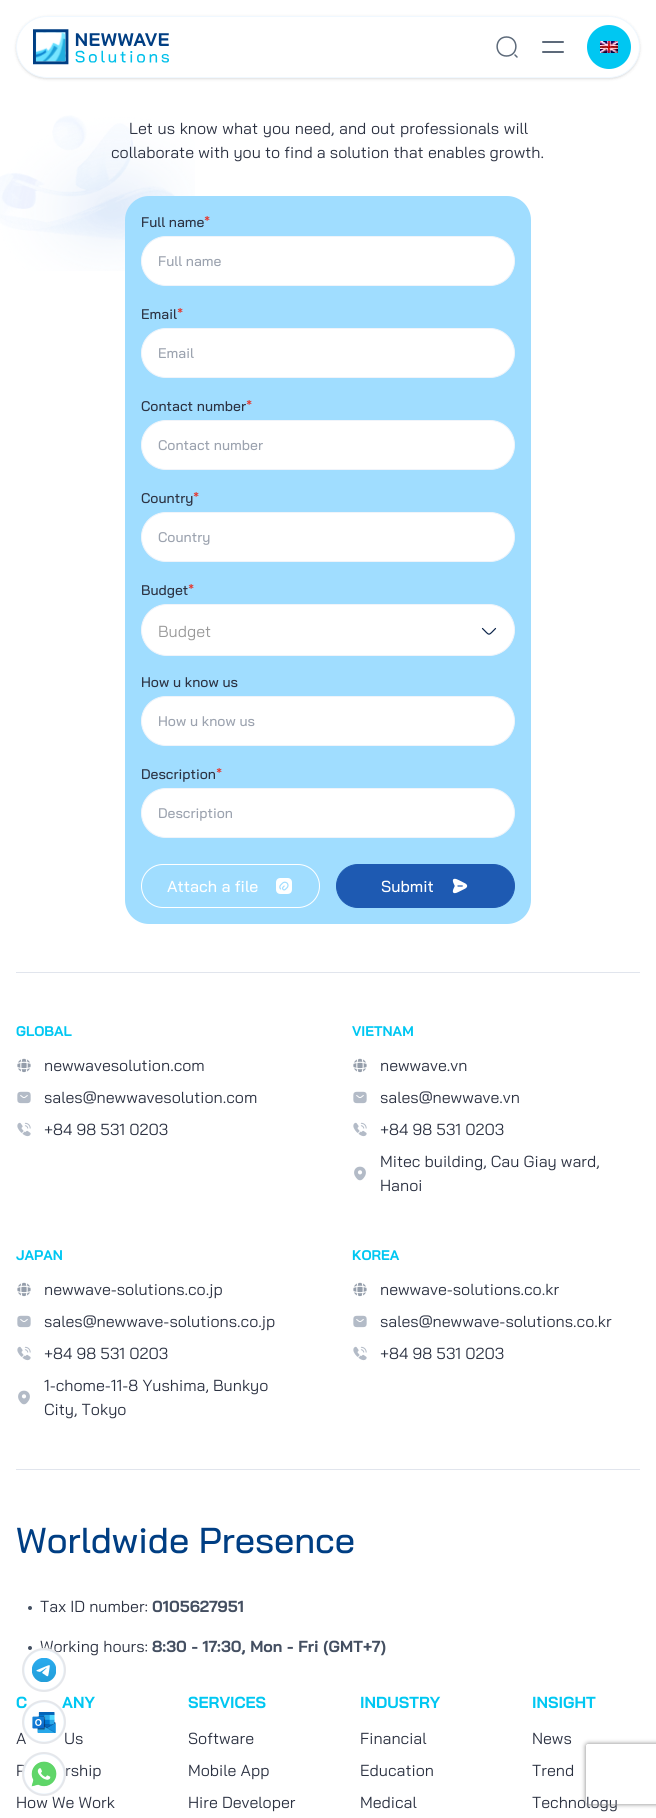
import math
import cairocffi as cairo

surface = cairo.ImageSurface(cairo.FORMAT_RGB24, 656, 1818)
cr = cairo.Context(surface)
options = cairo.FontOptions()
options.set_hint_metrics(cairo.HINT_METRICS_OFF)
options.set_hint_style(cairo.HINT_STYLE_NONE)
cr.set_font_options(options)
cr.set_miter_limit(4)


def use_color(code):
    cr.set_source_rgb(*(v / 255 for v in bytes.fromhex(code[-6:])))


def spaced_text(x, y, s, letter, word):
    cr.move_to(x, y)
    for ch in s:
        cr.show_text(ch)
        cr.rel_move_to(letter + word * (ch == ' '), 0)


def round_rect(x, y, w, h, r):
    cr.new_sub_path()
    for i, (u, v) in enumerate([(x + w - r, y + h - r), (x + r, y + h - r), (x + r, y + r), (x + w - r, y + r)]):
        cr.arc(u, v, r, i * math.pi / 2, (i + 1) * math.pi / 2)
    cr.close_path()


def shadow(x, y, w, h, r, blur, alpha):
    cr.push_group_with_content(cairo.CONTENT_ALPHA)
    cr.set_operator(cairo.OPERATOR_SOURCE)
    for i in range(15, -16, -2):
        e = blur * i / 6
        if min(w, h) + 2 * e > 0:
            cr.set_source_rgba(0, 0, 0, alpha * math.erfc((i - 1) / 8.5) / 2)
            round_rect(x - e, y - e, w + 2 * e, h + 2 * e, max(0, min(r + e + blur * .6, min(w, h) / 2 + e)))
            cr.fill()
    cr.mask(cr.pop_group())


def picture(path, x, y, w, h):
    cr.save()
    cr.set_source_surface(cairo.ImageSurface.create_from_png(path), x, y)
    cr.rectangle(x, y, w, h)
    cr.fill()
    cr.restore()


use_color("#ffffff")
cr.paint()
use_color("#000000")
shadow(17, 18, 622, 60, 30, 1, 0.1)
shadow(16, 17, 624, 62, 31, 1.5, 0.1)
use_color("#ffffff")
round_rect(16.5, 16.5, 623, 61, 30.5)
cr.fill_preserve()
use_color("#f0f8ff")
cr.set_line_width(1)
cr.stroke()
picture("img1.png", 33, 29, 136, 36)
cr.new_path()
cr.move_to(506.5, 56)
cr.curve_to(519, 56, 519, 37, 506.5, 37)
cr.curve_to(494, 37, 494, 56, 506.5, 56)
cr.close_path()
cr.move_to(517, 57)
cr.line_to(515, 55)
use_color("#5d6a7a")
cr.set_line_width(1.5)
cr.set_line_cap(cairo.LINE_CAP_ROUND)
cr.set_line_join(cairo.LINE_JOIN_ROUND)
cr.stroke()
round_rect(542, 41, 22, 2, 1)
cr.fill()
round_rect(542, 51, 22, 2, 1)
cr.fill()
use_color("#00c7f2")
cr.arc(609, 47, 22, 0, 2 * math.pi)
cr.fill()
picture("img2.png", 600, 41, 18, 12)
picture("img3.png", 0, 115, 195, 156)
cr.select_font_face("Bai Jamjuree")
cr.set_font_size(16)
use_color("#2c3242")
spaced_text(129, 134, "Let us know what you need, and out professionals will", 0, 0.5)
cr.move_to(111, 158)
cr.show_text("collaborate with you to find a solution that enables growth.")
use_color("#a0ddff")
round_rect(125, 196, 406, 728, 24)
cr.fill()
cr.select_font_face("Bai Jamjuree Medium")
cr.set_font_size(14)
use_color("#2c3242")
cr.move_to(141, 227)
cr.show_text("Full name")
use_color("#e5372e")
cr.move_to(204, 227)
cr.show_text("*")
use_color("#ffffff")
round_rect(141.5, 236.5, 373, 49, 24.5)
cr.fill_preserve()
use_color("#f0f4fa")
cr.set_line_width(1)
cr.set_line_cap(cairo.LINE_CAP_BUTT)
cr.set_line_join(cairo.LINE_JOIN_MITER)
cr.stroke()
use_color("#9ca3af")
cr.move_to(158, 266)
cr.show_text("Full name")
use_color("#2c3242")
cr.move_to(141, 319)
cr.show_text("Email")
use_color("#e5372e")
cr.move_to(177, 319)
cr.show_text("*")
use_color("#ffffff")
round_rect(141.5, 328.5, 373, 49, 24.5)
cr.fill_preserve()
use_color("#f0f4fa")
cr.stroke()
use_color("#9ca3af")
cr.move_to(158, 358)
cr.show_text("Email")
use_color("#2c3242")
cr.move_to(141, 411)
cr.show_text("Contact number")
use_color("#e5372e")
cr.move_to(246, 411)
cr.show_text("*")
use_color("#ffffff")
round_rect(141.5, 420.5, 373, 49, 24.5)
cr.fill_preserve()
use_color("#f0f4fa")
cr.stroke()
use_color("#9ca3af")
cr.move_to(158, 450)
cr.show_text("Contact number")
use_color("#2c3242")
cr.move_to(141, 503)
cr.show_text("Country")
use_color("#e5372e")
cr.move_to(193, 503)
cr.show_text("*")
use_color("#ffffff")
round_rect(141.5, 512.5, 373, 49, 24.5)
cr.fill_preserve()
use_color("#f0f4fa")
cr.stroke()
use_color("#9ca3af")
cr.move_to(158, 542)
cr.show_text("Country")
use_color("#2c3242")
cr.move_to(141, 595)
cr.show_text("Budget")
use_color("#e5372e")
cr.move_to(188, 595)
cr.show_text("*")
use_color("#ffffff")
round_rect(141.5, 604.5, 373, 51, 25.5)
cr.fill_preserve()
use_color("#f0f4fa")
cr.stroke()
cr.select_font_face("Bai Jamjuree")
cr.set_font_size(16)
use_color("#999999")
cr.move_to(158, 637)
cr.show_text("Budget")
cr.new_path()
cr.move_to(495.5, 628.5)
cr.curve_to(488, 636, 490, 636, 482.5, 628.5)
use_color("#0a2349")
cr.set_line_width(1.2)
cr.set_line_cap(cairo.LINE_CAP_ROUND)
cr.set_line_join(cairo.LINE_JOIN_ROUND)
cr.stroke()
cr.select_font_face("Bai Jamjuree Medium")
cr.set_font_size(14)
use_color("#2c3242")
cr.move_to(141, 687)
cr.show_text("How u know us")
use_color("#ffffff")
round_rect(141.5, 696.5, 373, 49, 24.5)
cr.fill_preserve()
use_color("#f0f4fa")
cr.set_line_width(1)
cr.set_line_cap(cairo.LINE_CAP_BUTT)
cr.set_line_join(cairo.LINE_JOIN_MITER)
cr.stroke()
use_color("#9ca3af")
cr.move_to(158, 726)
cr.show_text("How u know us")
use_color("#2c3242")
cr.move_to(141, 779)
cr.show_text("Description")
use_color("#e5372e")
cr.move_to(216, 779)
cr.show_text("*")
use_color("#ffffff")
round_rect(141.5, 788.5, 373, 49, 24.5)
cr.fill_preserve()
use_color("#f0f4fa")
cr.stroke()
use_color("#9ca3af")
cr.move_to(158, 818)
cr.show_text("Description")
round_rect(141.5, 864.5, 178, 43, 21.5)
use_color("#ffffff")
cr.stroke()
cr.set_font_size(16)
cr.move_to(167, 892)
cr.show_text("Attach a file")
picture("img4.png", 276, 878, 16, 16)
use_color("#1e5ab2")
round_rect(336.5, 864.5, 178, 43, 21.5)
cr.fill_preserve()
cr.stroke()
use_color("#ffffff")
cr.move_to(381, 892)
cr.show_text("Submit")
picture("img5.png", 452, 878, 16, 16)
use_color("#e1e5ed")
cr.rectangle(16, 972, 624, 1)
cr.fill()
cr.select_font_face("Bai Jamjuree", cairo.FONT_SLANT_NORMAL, cairo.FONT_WEIGHT_BOLD)
cr.set_font_size(14)
use_color("#00c7f2")
cr.move_to(16, 1036)
cr.show_text("GLOBAL")
picture("img6.png", 17, 1058, 14, 15)
cr.select_font_face("Bai Jamjuree")
cr.set_font_size(16)
use_color("#2c3242")
cr.move_to(44, 1071)
cr.show_text("newwavesolution.com")
picture("img7.png", 17, 1091, 14, 13)
cr.move_to(44, 1103)
cr.show_text("sales@newwavesolution.com")
picture("img8.png", 17, 1122, 14, 15)
cr.move_to(44, 1135)
cr.show_text("+84 98 531 0203")
cr.select_font_face("Bai Jamjuree", cairo.FONT_SLANT_NORMAL, cairo.FONT_WEIGHT_BOLD)
cr.set_font_size(14)
use_color("#00c7f2")
cr.move_to(352, 1036)
cr.show_text("VIETNAM")
picture("img6.png", 353, 1058, 14, 15)
cr.select_font_face("Bai Jamjuree")
cr.set_font_size(16)
use_color("#2c3242")
cr.move_to(380, 1071)
cr.show_text("newwave.vn")
picture("img7.png", 353, 1091, 14, 13)
cr.move_to(380, 1103)
cr.show_text("sales@newwave.vn")
picture("img8.png", 353, 1122, 14, 15)
cr.move_to(380, 1135)
cr.show_text("+84 98 531 0203")
picture("img9.png", 354, 1166, 12, 15)
cr.move_to(380, 1167)
cr.show_text("Mitec building, Cau Giay ward,")
cr.move_to(380, 1191)
cr.show_text("Hanoi")
cr.select_font_face("Bai Jamjuree", cairo.FONT_SLANT_NORMAL, cairo.FONT_WEIGHT_BOLD)
cr.set_font_size(14)
use_color("#00c7f2")
cr.move_to(16, 1260)
cr.show_text("JAPAN")
picture("img6.png", 17, 1282, 14, 15)
cr.select_font_face("Bai Jamjuree")
cr.set_font_size(16)
use_color("#2c3242")
cr.move_to(44, 1295)
cr.show_text("newwave-solutions.co.jp")
picture("img7.png", 17, 1315, 14, 13)
cr.move_to(44, 1327)
cr.show_text("sales@newwave-solutions.co.jp")
picture("img8.png", 17, 1346, 14, 15)
cr.move_to(44, 1359)
cr.show_text("+84 98 531 0203")
picture("img9.png", 18, 1390, 12, 15)
cr.move_to(44, 1391)
cr.show_text("1-chome-11-8 Yushima, Bunkyo")
cr.move_to(44, 1415)
cr.show_text("City, Tokyo")
cr.select_font_face("Bai Jamjuree", cairo.FONT_SLANT_NORMAL, cairo.FONT_WEIGHT_BOLD)
cr.set_font_size(14)
use_color("#00c7f2")
cr.move_to(352, 1260)
cr.show_text("KOREA")
picture("img6.png", 353, 1282, 14, 15)
cr.select_font_face("Bai Jamjuree")
cr.set_font_size(16)
use_color("#2c3242")
cr.move_to(380, 1295)
cr.show_text("newwave-solutions.co.kr")
picture("img7.png", 353, 1315, 14, 13)
cr.move_to(380, 1327)
cr.show_text("sales@newwave-solutions.co.kr")
picture("img8.png", 353, 1346, 14, 15)
cr.move_to(380, 1359)
cr.show_text("+84 98 531 0203")
use_color("#e1e5ed")
cr.rectangle(16, 1469, 624, 1)
cr.fill()
cr.select_font_face("Bai Jamjuree Medium")
cr.set_font_size(36)
use_color("#003e83")
cr.move_to(16, 1553)
cr.show_text("Worldwide Presence")
use_color("#444f61")
cr.new_path()
cr.arc(30, 1608, 2, 0, 2 * math.pi)
cr.fill()
cr.select_font_face("Bai Jamjuree")
cr.set_font_size(16)
use_color("#2c3242")
cr.move_to(40, 1612)
cr.show_text("Tax ID number:")
cr.select_font_face("Bai Jamjuree", cairo.FONT_SLANT_NORMAL, cairo.FONT_WEIGHT_BOLD)
use_color("#444f61")
cr.move_to(152, 1612)
cr.show_text("0105627951")
cr.new_path()
cr.arc(30, 1648, 2, 0, 2 * math.pi)
cr.fill()
cr.select_font_face("Bai Jamjuree")
use_color("#2c3242")
cr.move_to(40, 1652)
cr.show_text("Working hours:")
cr.select_font_face("Bai Jamjuree", cairo.FONT_SLANT_NORMAL, cairo.FONT_WEIGHT_BOLD)
use_color("#444f61")
cr.move_to(152, 1652)
cr.show_text("8:30 - 17:30, Mon - Fri (GMT+7)")
use_color("#00c7f2")
cr.move_to(16, 1708)
cr.show_text("C")
cr.move_to(62, 1708)
cr.show_text("ANY")
cr.select_font_face("Bai Jamjuree")
use_color("#2c3242")
cr.move_to(16, 1744)
cr.show_text("A")
cr.move_to(64, 1744)
cr.show_text("Us")
cr.move_to(16, 1776)
cr.show_text("P")
cr.move_to(65, 1776)
cr.show_text("rship")
cr.move_to(16, 1808)
cr.show_text("How We Work")
cr.select_font_face("Bai Jamjuree", cairo.FONT_SLANT_NORMAL, cairo.FONT_WEIGHT_BOLD)
use_color("#00c7f2")
cr.move_to(188, 1708)
cr.show_text("SERVICES")
cr.select_font_face("Bai Jamjuree")
use_color("#2c3242")
cr.move_to(188, 1744)
cr.show_text("Software")
cr.move_to(188, 1776)
cr.show_text("Mobile App")
cr.move_to(188, 1808)
cr.show_text("Hire Developer")
cr.select_font_face("Bai Jamjuree", cairo.FONT_SLANT_NORMAL, cairo.FONT_WEIGHT_BOLD)
use_color("#00c7f2")
cr.move_to(360, 1708)
cr.show_text("INDUSTRY")
cr.select_font_face("Bai Jamjuree")
use_color("#2c3242")
cr.move_to(360, 1744)
cr.show_text("Financial")
cr.move_to(360, 1776)
cr.show_text("Education")
cr.move_to(360, 1808)
cr.show_text("Medical")
cr.select_font_face("Bai Jamjuree", cairo.FONT_SLANT_NORMAL, cairo.FONT_WEIGHT_BOLD)
use_color("#00c7f2")
cr.move_to(532, 1708)
cr.show_text("INSIGHT")
cr.select_font_face("Bai Jamjuree")
use_color("#2c3242")
cr.move_to(532, 1744)
cr.show_text("News")
cr.move_to(532, 1776)
cr.show_text("Trend")
cr.move_to(532, 1808)
cr.show_text("Technology")
picture("img10.png", 23, 1646, 42, 45)
cr.arc(44, 1670, 21, 0, 2 * math.pi)
use_color("#e5e7eb")
cr.set_line_width(2)
cr.stroke()
picture("img11.png", 23, 1698, 42, 47)
cr.arc(44, 1722, 21, 0, 2 * math.pi)
cr.stroke()
picture("img12.png", 20, 1753, 48, 42)
cr.arc(44, 1774, 21, 0, 2 * math.pi)
cr.stroke()
cr.save()
cr.set_fill_rule(cairo.FILL_RULE_EVEN_ODD)
cr.new_path()
cr.move_to(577, 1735)
cr.line_to(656, 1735)
cr.line_to(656, 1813)
cr.line_to(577, 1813)
cr.close_path()
cr.move_to(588, 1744)
cr.line_to(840, 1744)
cr.curve_to(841, 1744, 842, 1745, 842, 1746)
cr.line_to(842, 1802)
cr.curve_to(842, 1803, 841, 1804, 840, 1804)
cr.line_to(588, 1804)
cr.curve_to(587, 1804, 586, 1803, 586, 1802)
cr.line_to(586, 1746)
cr.curve_to(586, 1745, 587, 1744, 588, 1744)
cr.close_path()
cr.clip()
use_color("#808080")
shadow(586, 1744, 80, 60, 2, 2.5, 1)
cr.restore()
surface.write_to_png("result.png")
